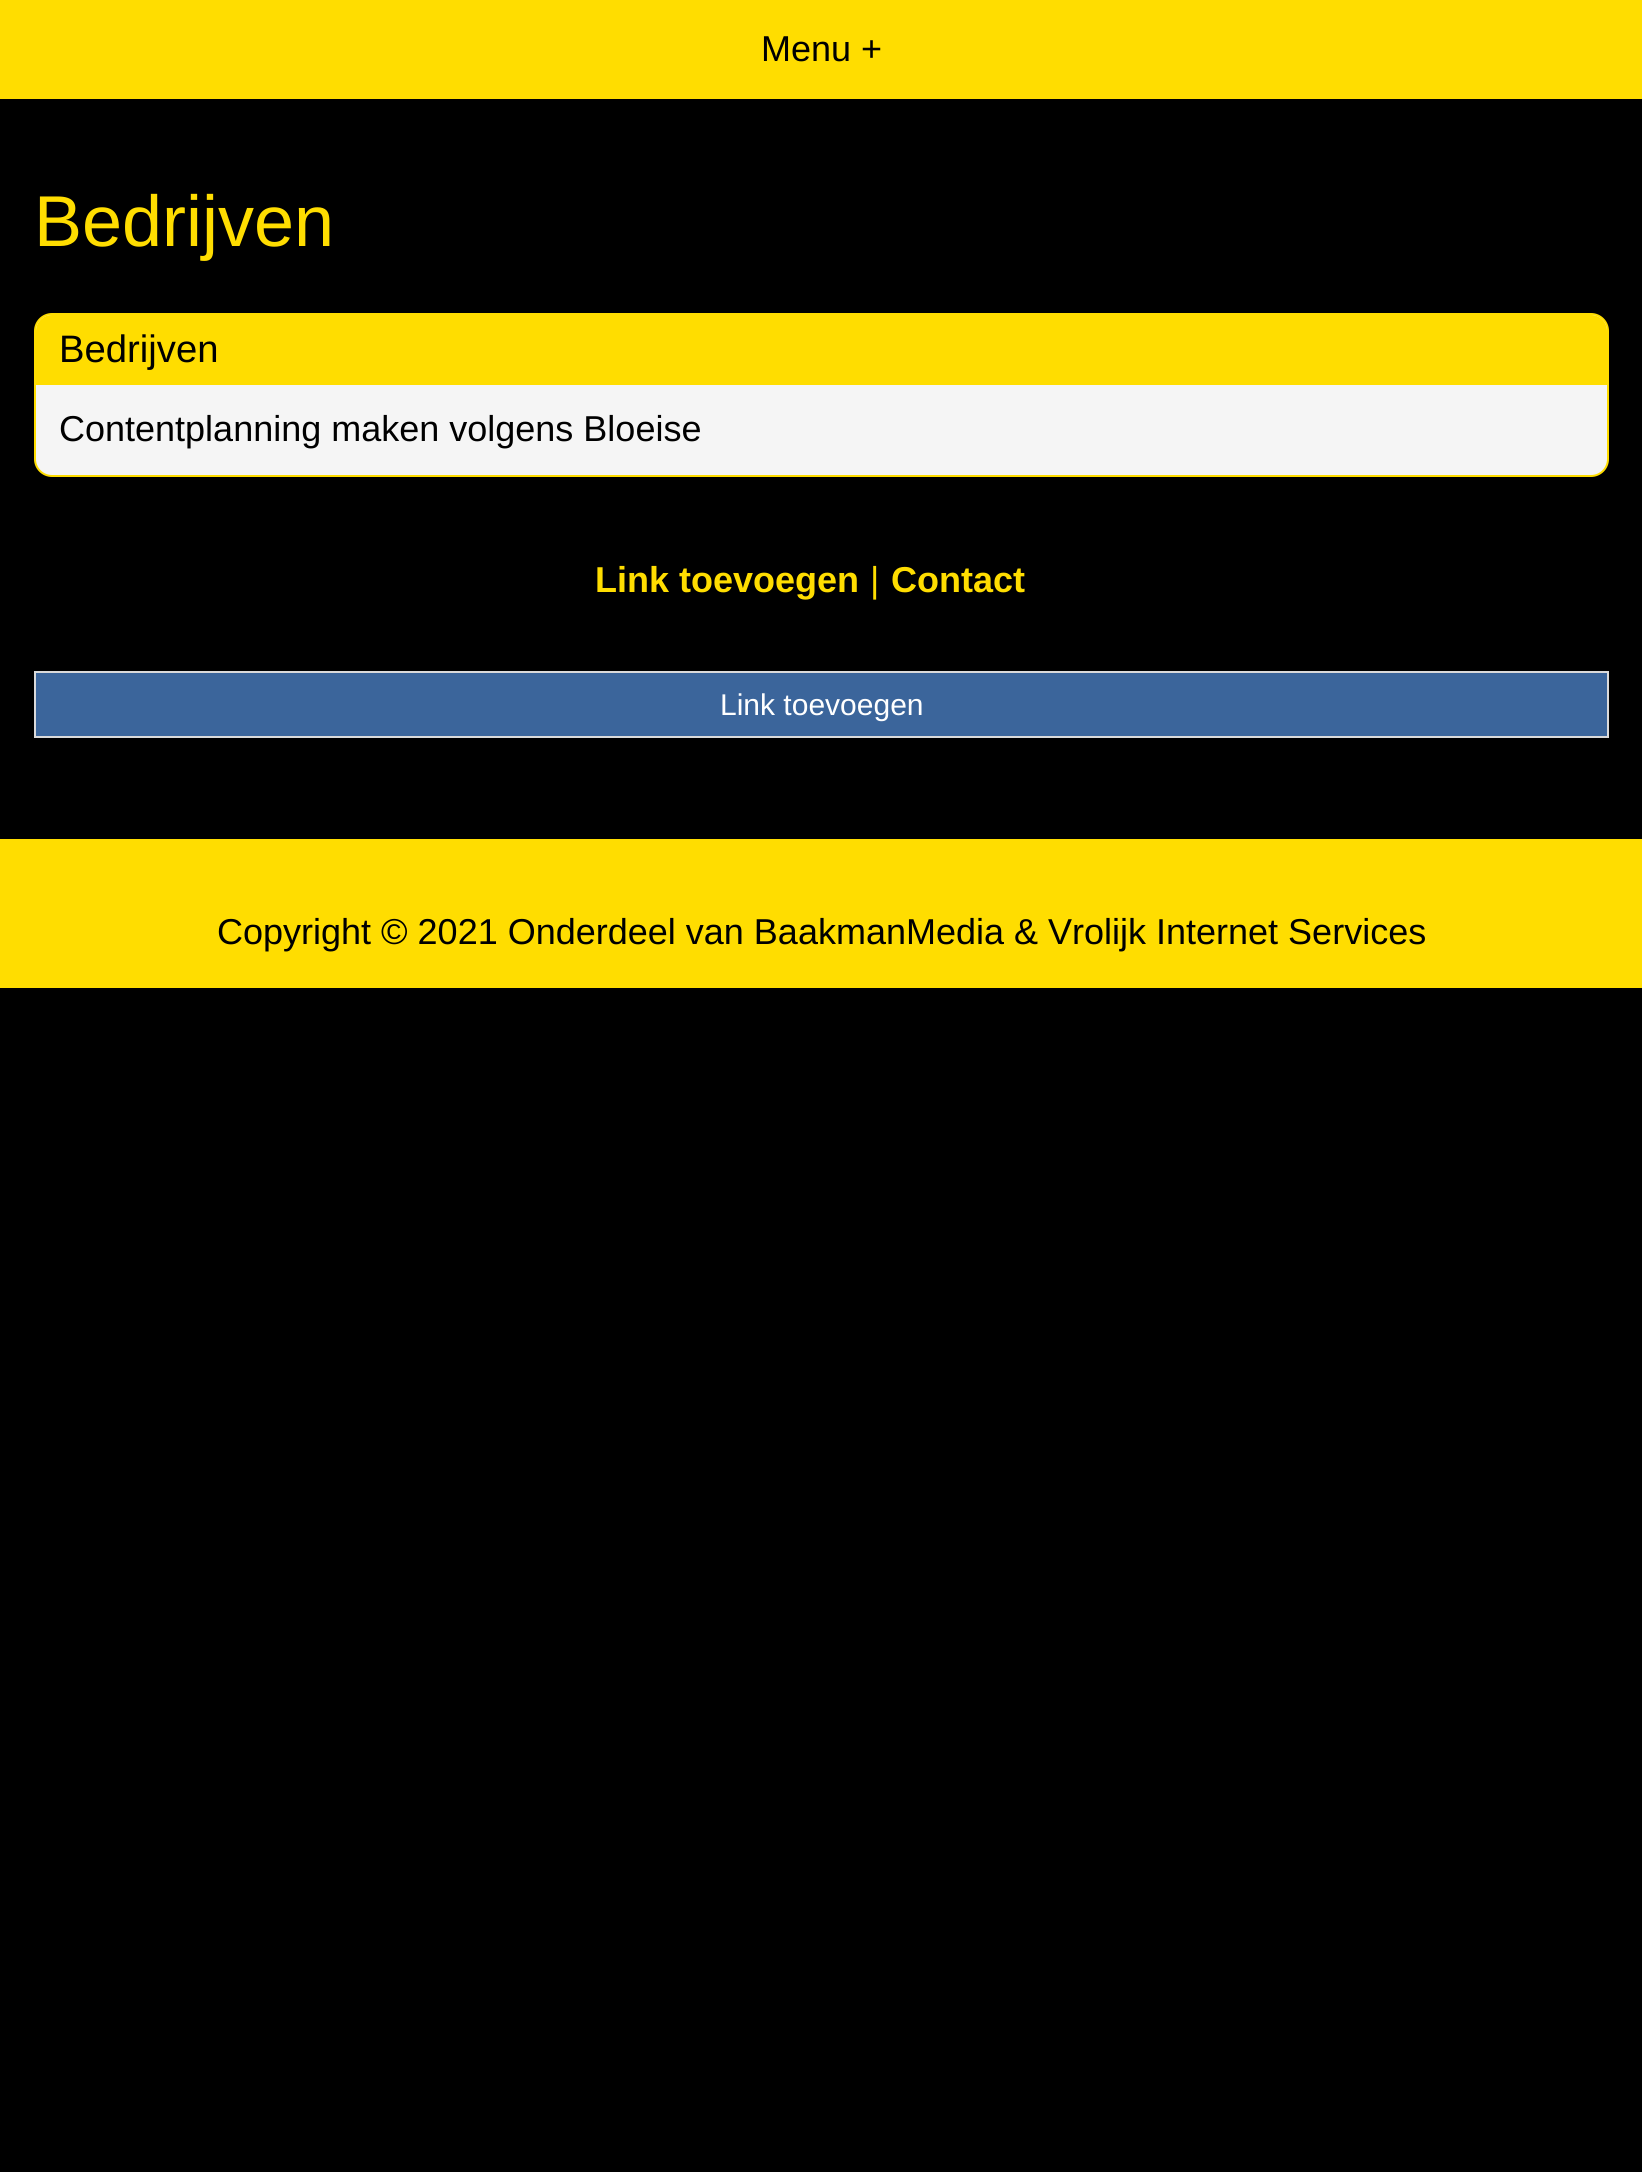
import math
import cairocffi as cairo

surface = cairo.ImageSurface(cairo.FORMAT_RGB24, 1642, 2172)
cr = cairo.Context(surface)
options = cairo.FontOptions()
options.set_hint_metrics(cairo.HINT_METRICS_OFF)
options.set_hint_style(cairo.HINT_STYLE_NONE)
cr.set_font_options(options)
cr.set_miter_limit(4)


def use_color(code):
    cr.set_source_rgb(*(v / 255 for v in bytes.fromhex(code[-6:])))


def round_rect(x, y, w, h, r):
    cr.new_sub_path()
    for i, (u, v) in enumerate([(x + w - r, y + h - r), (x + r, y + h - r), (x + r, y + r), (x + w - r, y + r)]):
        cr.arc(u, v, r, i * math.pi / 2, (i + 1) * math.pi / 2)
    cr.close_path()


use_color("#000000")
cr.paint()
use_color("#ffdd00")
cr.rectangle(0, 0, 1642, 99)
cr.fill()
cr.select_font_face("Liberation Sans")
cr.set_font_size(36)
use_color("#000000")
cr.move_to(761, 61)
cr.show_text("Menu +")
cr.set_font_size(72)
use_color("#ffdd00")
cr.move_to(34, 246)
cr.show_text("Bedrijven")
use_color("#f5f5f5")
round_rect(35, 314, 1573, 162, 17)
cr.fill_preserve()
use_color("#ffdd00")
cr.stroke()
cr.new_path()
cr.move_to(52, 315)
cr.line_to(1591, 315)
cr.curve_to(1600, 315, 1607, 322, 1607, 331)
cr.line_to(1607, 385)
cr.line_to(36, 385)
cr.line_to(36, 331)
cr.curve_to(36, 322, 43, 315, 52, 315)
cr.close_path()
cr.fill()
cr.set_font_size(38.25)
use_color("#000000")
cr.move_to(59, 362)
cr.show_text("Bedrijven")
cr.set_font_size(36)
cr.move_to(59, 441)
cr.show_text("Contentplanning maken volgens Bloeise")
cr.select_font_face("Liberation Sans", cairo.FONT_SLANT_NORMAL, cairo.FONT_WEIGHT_BOLD)
use_color("#ffdd00")
cr.move_to(595, 592)
cr.show_text("Link toevoegen")
cr.select_font_face("Liberation Sans")
cr.move_to(870, 592)
cr.show_text("|")
cr.select_font_face("Liberation Sans", cairo.FONT_SLANT_NORMAL, cairo.FONT_WEIGHT_BOLD)
cr.move_to(891, 592)
cr.show_text("Contact")
use_color("#3b659b")
cr.rectangle(35, 672, 1573, 65)
cr.fill_preserve()
use_color("#dadada")
cr.stroke()
cr.select_font_face("Liberation Sans")
cr.set_font_size(30)
use_color("#ffffff")
cr.move_to(720, 715)
cr.show_text("Link toevoegen")
use_color("#ffdd00")
cr.rectangle(0, 839, 1642, 149)
cr.fill()
cr.set_font_size(36)
use_color("#000000")
cr.move_to(217, 944)
cr.show_text("Copyright © 2021 Onderdeel van BaakmanMedia & Vrolijk Internet Services")
surface.write_to_png("result.png")
